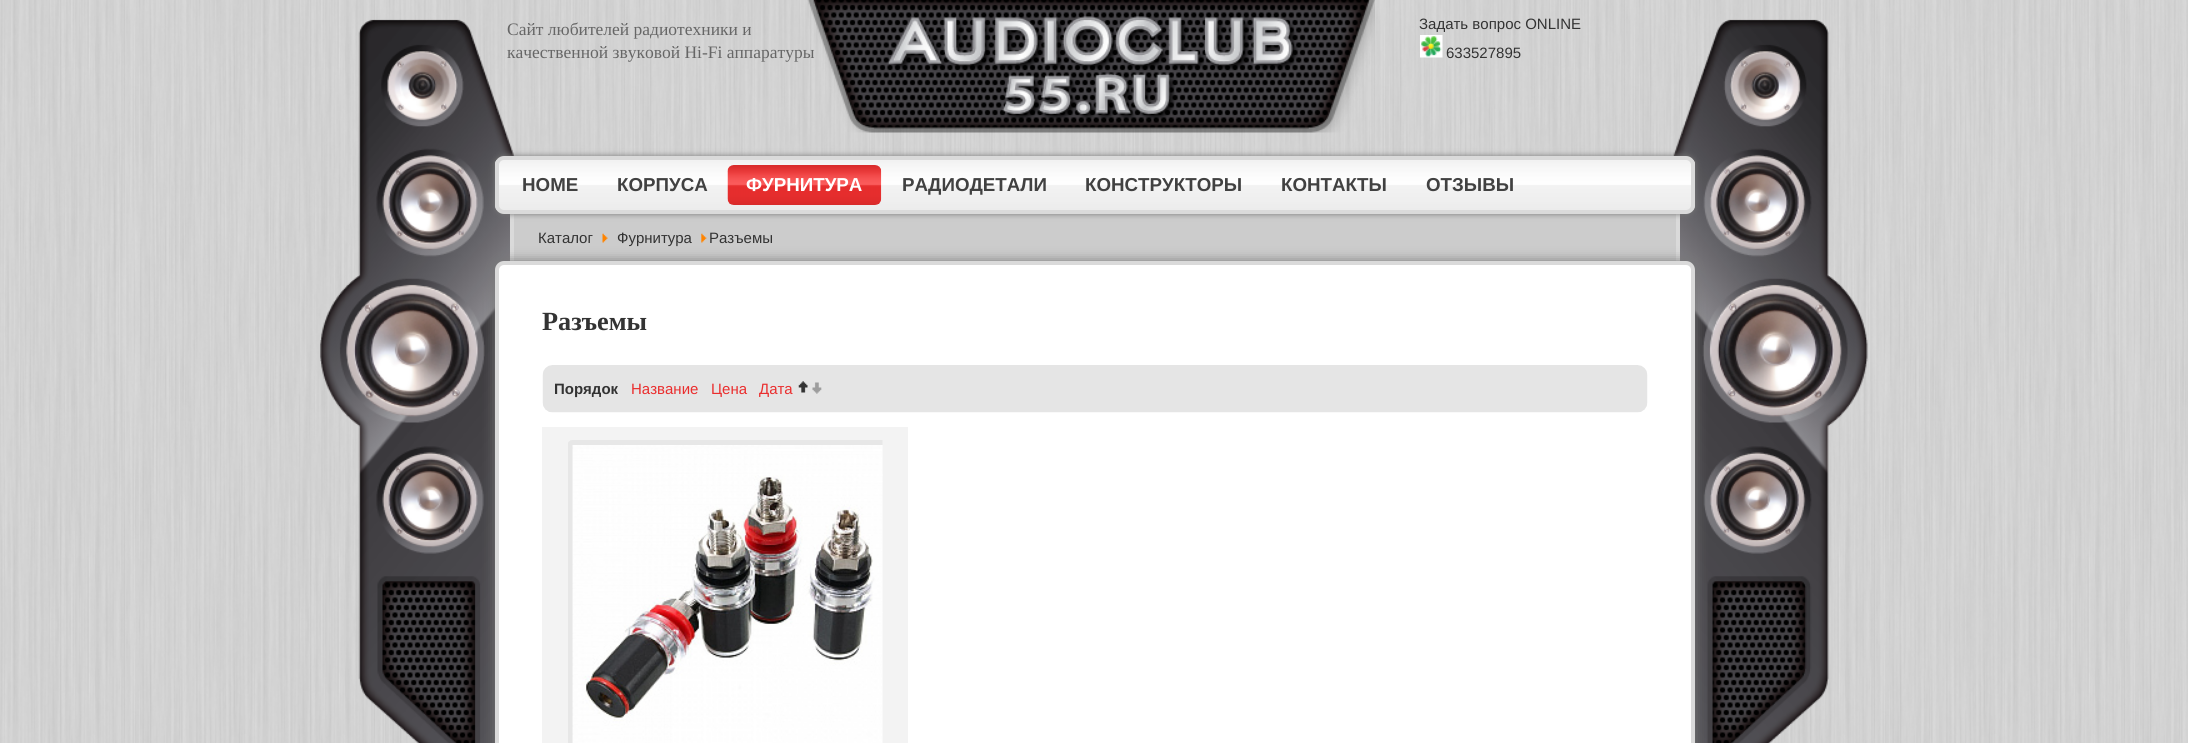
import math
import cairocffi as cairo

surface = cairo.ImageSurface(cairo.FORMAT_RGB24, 2188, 743)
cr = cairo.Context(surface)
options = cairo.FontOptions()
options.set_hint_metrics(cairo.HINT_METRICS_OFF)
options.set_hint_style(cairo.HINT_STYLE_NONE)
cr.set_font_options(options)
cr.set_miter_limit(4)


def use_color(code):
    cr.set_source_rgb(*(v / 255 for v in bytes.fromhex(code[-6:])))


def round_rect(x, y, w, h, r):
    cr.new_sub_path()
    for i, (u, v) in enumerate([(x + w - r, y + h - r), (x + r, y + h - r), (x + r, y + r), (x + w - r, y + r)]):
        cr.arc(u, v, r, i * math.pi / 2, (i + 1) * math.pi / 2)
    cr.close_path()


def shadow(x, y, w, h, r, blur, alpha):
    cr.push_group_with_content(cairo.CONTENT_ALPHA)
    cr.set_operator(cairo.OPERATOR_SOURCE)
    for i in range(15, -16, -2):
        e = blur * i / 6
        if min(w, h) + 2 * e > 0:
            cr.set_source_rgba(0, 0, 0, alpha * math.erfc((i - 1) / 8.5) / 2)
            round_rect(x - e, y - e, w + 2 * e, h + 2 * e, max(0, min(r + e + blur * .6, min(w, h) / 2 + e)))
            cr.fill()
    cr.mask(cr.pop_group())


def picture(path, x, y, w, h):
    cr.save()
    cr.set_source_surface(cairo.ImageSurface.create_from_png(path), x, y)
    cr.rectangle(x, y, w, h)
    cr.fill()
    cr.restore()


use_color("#ffffff")
cr.paint()
picture("img1.png", 0, 0, 2188, 743)
picture("img2.png", 320, 19, 1548, 724)
cr.select_font_face("Liberation Serif")
cr.set_font_size(17.5)
use_color("#666666")
cr.move_to(507, 35)
cr.show_text("Сайт любителей радиотехники и")
cr.move_to(507, 58)
cr.show_text("качественной звуковой Hi-Fi аппаратуры")
picture("img3.png", 807, 0, 568, 133)
cr.select_font_face("Liberation Sans")
cr.set_font_size(15)
use_color("#333333")
cr.move_to(1419, 29)
cr.show_text("Задать вопрос ONLINE")
picture("img4.png", 1420, 35, 23, 23)
cr.move_to(1446, 58)
cr.show_text("633527895")
use_color("#cccccc")
cr.rectangle(514, 214, 1162, 47)
cr.fill()
use_color("#dadada")
cr.rectangle(1676, 214, 4, 47)
cr.fill()
cr.rectangle(510, 214, 4, 47)
cr.fill()
use_color("#777777")
shadow(495, 156, 1200, 58, 9, 3, 1)
picture("img5.png", 495, 160, 1200, 50)
round_rect(497, 158, 1196, 54, 7)
use_color("#dadada")
cr.set_line_width(4)
cr.stroke()
cr.select_font_face("Liberation Sans", cairo.FONT_SLANT_NORMAL, cairo.FONT_WEIGHT_BOLD)
cr.set_font_size(18.75)
use_color("#414141")
cr.move_to(522, 191)
cr.show_text("HOME")
cr.move_to(617, 191)
cr.show_text("КОРПУСА")
picture("img6.png", 727, 165, 155, 40)
use_color("#ffffff")
cr.move_to(746, 191)
cr.show_text("ФУРНИТУРА")
use_color("#414141")
cr.move_to(902, 191)
cr.show_text("РАДИОДЕТАЛИ")
cr.move_to(1085, 191)
cr.show_text("КОНСТРУКТОРЫ")
cr.move_to(1281, 191)
cr.show_text("КОНТАКТЫ")
cr.move_to(1426, 191)
cr.show_text("ОТЗЫВЫ")
cr.select_font_face("Liberation Sans")
cr.set_font_size(15)
use_color("#333333")
cr.move_to(538, 243)
cr.show_text("Каталог")
picture("img7.png", 602, 233, 6, 10)
cr.move_to(617, 243)
cr.show_text("Фурнитура")
picture("img8.png", 701, 233, 6, 10)
cr.move_to(709, 243)
cr.show_text("Разъемы")
use_color("#777777")
shadow(495, 261, 1200, 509, 9, 6, 1)
use_color("#ffffff")
round_rect(497, 263, 1196, 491, 7)
cr.fill_preserve()
use_color("#dadada")
cr.stroke()
cr.select_font_face("Liberation Serif", cairo.FONT_SLANT_NORMAL, cairo.FONT_WEIGHT_BOLD)
cr.set_font_size(26.25)
use_color("#333333")
cr.move_to(542, 330)
cr.show_text("Разъемы")
picture("img9.png", 542, 365, 1106, 48)
cr.select_font_face("Liberation Sans", cairo.FONT_SLANT_NORMAL, cairo.FONT_WEIGHT_BOLD)
cr.set_font_size(15)
cr.move_to(554, 394)
cr.show_text("Порядок")
cr.select_font_face("Liberation Sans")
use_color("#ea2e2e")
cr.move_to(631, 394)
cr.show_text("Название")
cr.move_to(711, 394)
cr.show_text("Цена")
cr.move_to(759, 394)
cr.show_text("Дата")
picture("img10.png", 798, 381, 24, 13)
use_color("#f3f3f3")
cr.rectangle(542, 427, 366, 316)
cr.fill()
picture("img11.png", 568, 440, 315, 303)
picture("img12.png", 572, 445, 311, 298)
surface.write_to_png("result.png")
